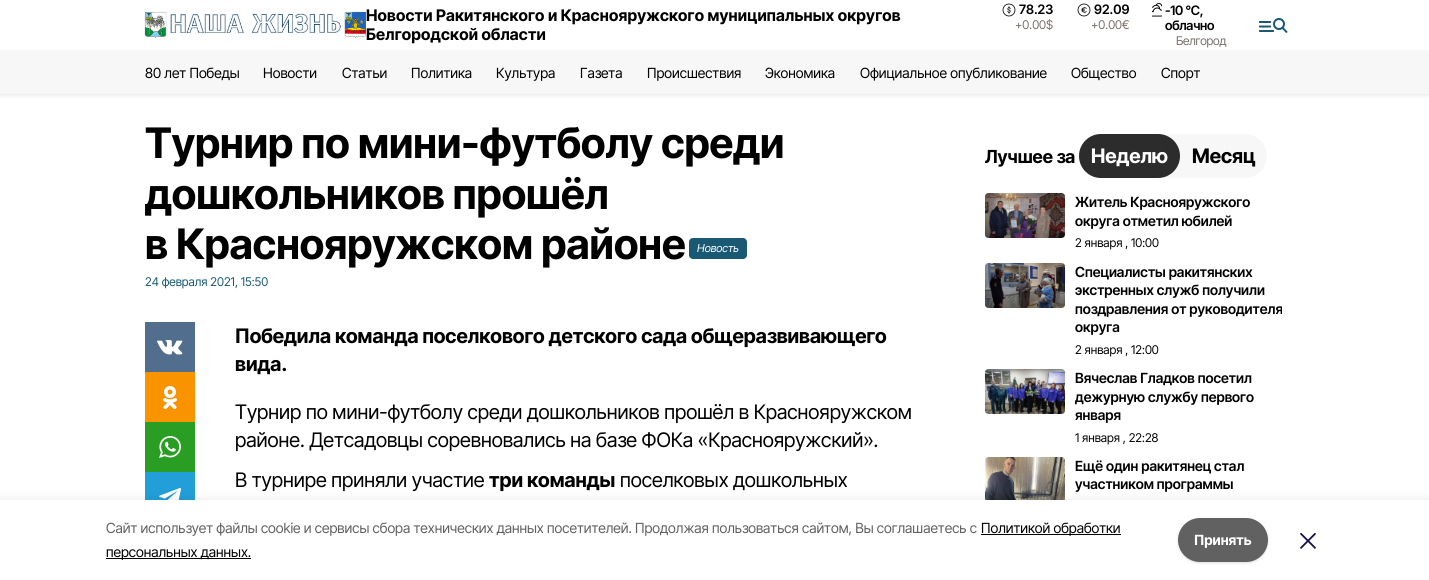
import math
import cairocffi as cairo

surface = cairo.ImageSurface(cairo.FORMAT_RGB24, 1429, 580)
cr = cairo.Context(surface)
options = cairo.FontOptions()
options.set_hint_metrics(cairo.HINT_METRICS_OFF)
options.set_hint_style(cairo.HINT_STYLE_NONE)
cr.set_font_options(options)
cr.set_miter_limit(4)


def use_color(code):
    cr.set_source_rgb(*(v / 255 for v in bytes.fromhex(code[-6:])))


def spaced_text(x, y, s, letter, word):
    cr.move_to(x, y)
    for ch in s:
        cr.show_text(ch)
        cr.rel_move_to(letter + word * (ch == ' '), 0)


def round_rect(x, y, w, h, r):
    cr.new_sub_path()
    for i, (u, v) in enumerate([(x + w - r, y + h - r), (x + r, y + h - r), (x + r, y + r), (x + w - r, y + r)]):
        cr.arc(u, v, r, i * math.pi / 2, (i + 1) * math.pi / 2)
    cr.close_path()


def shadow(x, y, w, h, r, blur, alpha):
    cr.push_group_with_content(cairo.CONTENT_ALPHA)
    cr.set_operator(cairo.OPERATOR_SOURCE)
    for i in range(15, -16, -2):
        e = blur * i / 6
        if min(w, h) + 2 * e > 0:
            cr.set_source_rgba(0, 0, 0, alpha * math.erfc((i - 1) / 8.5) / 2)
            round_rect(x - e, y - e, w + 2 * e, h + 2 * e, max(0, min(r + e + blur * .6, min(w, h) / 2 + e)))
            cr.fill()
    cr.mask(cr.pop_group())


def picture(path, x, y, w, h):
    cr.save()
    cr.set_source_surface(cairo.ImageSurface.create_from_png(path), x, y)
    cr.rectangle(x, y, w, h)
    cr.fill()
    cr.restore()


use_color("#ffffff")
cr.paint()
picture("img1.png", 144, 11, 222, 27)
cr.select_font_face("Inter Tight", cairo.FONT_SLANT_NORMAL, cairo.FONT_WEIGHT_BOLD)
cr.set_font_size(16)
use_color("#000000")
spaced_text(366, 21, "Новости Ракитянского и Краснояружского муниципальных округов", 0.2, 0)
spaced_text(366, 40, "Белгородской области", 0.2, 0)
picture("img2.png", 1002, 3, 14, 14)
cr.select_font_face("Inter Tight SemiBold")
cr.set_font_size(13)
cr.move_to(1019, 14)
cr.show_text("78.23")
cr.select_font_face("Inter Tight")
cr.set_font_size(12)
use_color("#78716c")
cr.move_to(1015, 29)
cr.show_text("+0.00$")
picture("img3.png", 1077, 3, 14, 14)
cr.select_font_face("Inter Tight SemiBold")
cr.set_font_size(13)
use_color("#000000")
cr.move_to(1094, 14)
cr.show_text("92.09")
cr.select_font_face("Inter Tight")
cr.set_font_size(12)
use_color("#78716c")
cr.move_to(1091, 29)
cr.show_text("+0.00€")
picture("img4.png", 1152, 3, 10, 14)
cr.select_font_face("Inter Tight SemiBold")
cr.set_font_size(13)
use_color("#000000")
spaced_text(1165, 15, "-10 °С,", -0.25, 0)
spaced_text(1165, 30, "облачно", -0.25, 0)
use_color("#000000")
shadow(0, 52, 1429, 44, 0, 2, 0.08)
cr.select_font_face("Inter Tight")
cr.set_font_size(12)
use_color("#78716c")
spaced_text(1176, 45, "Белгород", -0.25, 0)
picture("img5.png", 1259, 18, 29, 15)
use_color("#f7f7f7")
cr.rectangle(0, 50, 1429, 44)
cr.fill()
cr.set_font_size(14)
use_color("#000000")
cr.move_to(145, 78)
cr.show_text("80 лет Победы")
cr.move_to(263, 78)
cr.show_text("Новости")
cr.move_to(342, 78)
cr.show_text("Статьи")
cr.move_to(411, 78)
cr.show_text("Политика")
cr.move_to(496, 78)
cr.show_text("Культура")
cr.move_to(580, 78)
cr.show_text("Газета")
cr.move_to(647, 78)
cr.show_text("Происшествия")
cr.move_to(765, 78)
cr.show_text("Экономика")
cr.move_to(860, 78)
cr.show_text("Официальное опубликование")
cr.move_to(1071, 78)
cr.show_text("Общество")
cr.move_to(1161, 78)
cr.show_text("Спорт")
cr.select_font_face("Inter Tight", cairo.FONT_SLANT_NORMAL, cairo.FONT_WEIGHT_BOLD)
cr.set_font_size(42)
cr.move_to(145, 158)
cr.show_text("Турнир по мини-футболу среди")
cr.move_to(145, 209)
cr.show_text("дошкольников прошёл")
cr.move_to(145, 259)
cr.show_text("в Краснояружском районе")
use_color("#195974")
round_rect(689, 238, 58, 21, 4)
cr.fill()
cr.select_font_face("Inter Tight", cairo.FONT_SLANT_ITALIC)
cr.set_font_size(11)
use_color("#ffffff")
cr.move_to(697, 252)
cr.show_text("Новость")
cr.select_font_face("Inter Tight")
cr.set_font_size(12)
use_color("#195974")
cr.move_to(145, 286)
cr.show_text("24 февраля 2021, 15:50")
use_color("#526e8f")
cr.rectangle(145, 322, 50, 50)
cr.fill()
picture("img6.png", 157, 340, 26, 15)
use_color("#f99400")
cr.rectangle(145, 372, 50, 50)
cr.fill()
picture("img7.png", 163, 386, 14, 23)
use_color("#2a9e22")
cr.rectangle(145, 422, 50, 50)
cr.fill()
picture("img8.png", 159, 436, 22, 22)
use_color("#229ed9")
cr.rectangle(145, 472, 50, 28)
cr.fill()
picture("img9.png", 159, 488, 22, 12)
cr.select_font_face("Inter Tight", cairo.FONT_SLANT_NORMAL, cairo.FONT_WEIGHT_BOLD)
cr.set_font_size(20)
use_color("#000000")
cr.move_to(235, 343)
cr.show_text("Победила команда поселкового детского сада общеразвивающего")
cr.move_to(235, 371)
cr.show_text("вида.")
cr.select_font_face("Inter Tight")
cr.move_to(235, 419)
cr.show_text("Турнир по мини-футболу среди дошкольников прошёл в Краснояружском")
cr.move_to(235, 447)
cr.show_text("районе. Детсадовцы соревновались на базе ФОКа «Краснояружский».")
cr.move_to(235, 487)
cr.show_text("В турнире приняли участие")
cr.select_font_face("Inter Tight", cairo.FONT_SLANT_NORMAL, cairo.FONT_WEIGHT_BOLD)
cr.move_to(489, 487)
cr.show_text("три команды")
cr.select_font_face("Inter Tight")
cr.move_to(620, 487)
cr.show_text("поселковых дошкольных")
cr.select_font_face("Inter Tight", cairo.FONT_SLANT_NORMAL, cairo.FONT_WEIGHT_BOLD)
cr.set_font_size(18)
cr.move_to(985, 163)
cr.show_text("Лучшее за")
use_color("#f7f7f7")
round_rect(1079, 134, 188, 44, 22)
cr.fill()
use_color("#2c2c2c")
round_rect(1079, 134, 101, 44, 22)
cr.fill()
cr.set_font_size(20)
use_color("#ffffff")
cr.move_to(1091, 163)
cr.show_text("Неделю")
use_color("#000000")
cr.move_to(1192, 163)
cr.show_text("Месяц")
picture("img10.png", 985, 193, 80, 45)
picture("img11.png", 985, 193, 80, 45)
cr.select_font_face("Inter Tight SemiBold")
cr.set_font_size(14)
cr.move_to(1075, 207)
cr.show_text("Житель Краснояружского")
cr.move_to(1075, 226)
cr.show_text("округа отметил юбилей")
cr.select_font_face("Inter Tight")
cr.set_font_size(12)
cr.move_to(1075, 247)
cr.show_text("2 января , 10:00")
picture("img12.png", 985, 263, 80, 45)
picture("img13.png", 985, 263, 80, 45)
cr.select_font_face("Inter Tight SemiBold")
cr.set_font_size(14)
cr.move_to(1075, 277)
cr.show_text("Специалисты ракитянских")
cr.move_to(1075, 295)
cr.show_text("экстренных служб получили")
cr.move_to(1075, 314)
cr.show_text("поздравления от руководителя")
cr.move_to(1075, 332)
cr.show_text("округа")
cr.select_font_face("Inter Tight")
cr.set_font_size(12)
cr.move_to(1075, 354)
cr.show_text("2 января , 12:00")
picture("img14.png", 985, 369, 80, 45)
picture("img15.png", 985, 369, 80, 45)
cr.select_font_face("Inter Tight SemiBold")
cr.set_font_size(14)
cr.move_to(1075, 383)
cr.show_text("Вячеслав Гладков посетил")
cr.move_to(1075, 402)
cr.show_text("дежурную службу первого")
cr.move_to(1075, 420)
cr.show_text("января")
cr.select_font_face("Inter Tight")
cr.set_font_size(12)
cr.move_to(1075, 442)
cr.show_text("1 января , 22:28")
picture("img16.png", 985, 457, 80, 43)
picture("img17.png", 985, 457, 80, 43)
cr.select_font_face("Inter Tight SemiBold")
cr.set_font_size(14)
cr.move_to(1075, 471)
cr.show_text("Ещё один ракитянец стал")
cr.move_to(1075, 489)
cr.show_text("участником программы")
use_color("#000000")
shadow(0, 500, 1429, 80, 0, 5, 0.1)
use_color("#ffffff")
cr.rectangle(0, 500, 1429, 80)
cr.fill()
cr.select_font_face("Inter Tight")
use_color("#616161")
cr.move_to(106, 533)
cr.show_text("Cайт использует файлы cookie и сервисы сбора технических данных посетителей.")
cr.move_to(635, 533)
cr.show_text("Продолжая пользоваться сайтом, Вы соглашаетесь с")
use_color("#000000")
cr.rectangle(981, 534, 140, 1)
cr.fill()
cr.move_to(981, 533)
cr.show_text("Политикой обработки")
cr.rectangle(106, 558, 145, 1)
cr.fill()
cr.move_to(106, 557)
cr.show_text("персональных данных.")
use_color("#000000")
shadow(1179, 520, 88, 42, 21, 1, 0.1)
shadow(1178, 519, 90, 44, 22, 1.5, 0.1)
use_color("#616161")
round_rect(1178, 518, 90, 44, 22)
cr.fill()
cr.select_font_face("Inter Tight", cairo.FONT_SLANT_NORMAL, cairo.FONT_WEIGHT_BOLD)
use_color("#ffffff")
cr.move_to(1194, 545)
cr.show_text("Принять")
picture("img18.png", 1300, 533, 16, 16)
surface.write_to_png("result.png")
